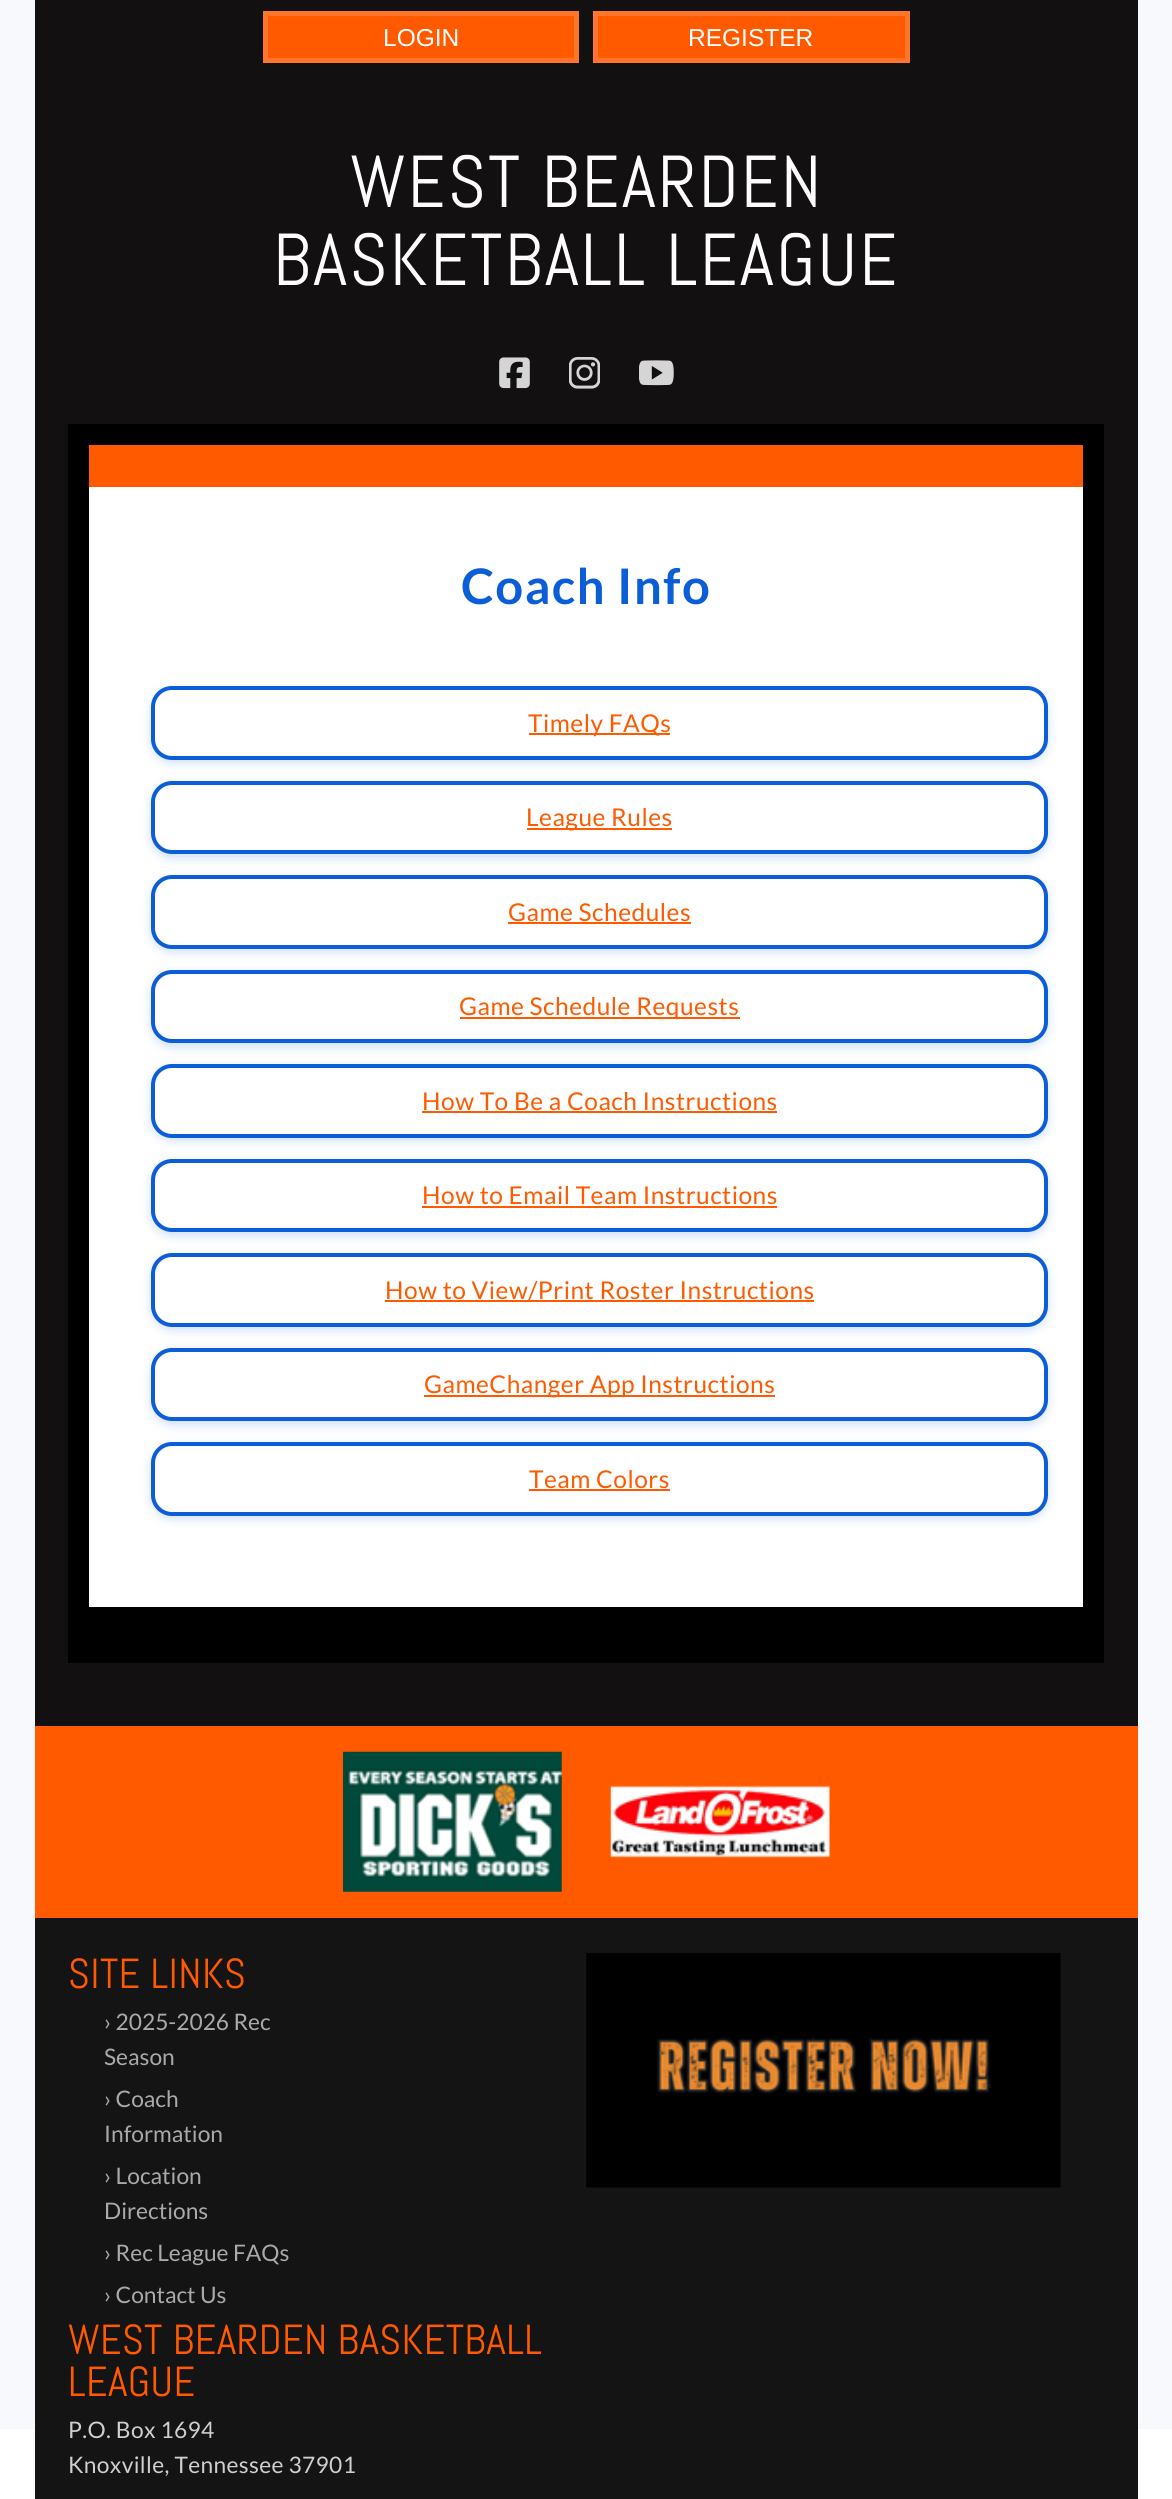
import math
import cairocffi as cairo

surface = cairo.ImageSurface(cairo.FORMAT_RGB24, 1172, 2499)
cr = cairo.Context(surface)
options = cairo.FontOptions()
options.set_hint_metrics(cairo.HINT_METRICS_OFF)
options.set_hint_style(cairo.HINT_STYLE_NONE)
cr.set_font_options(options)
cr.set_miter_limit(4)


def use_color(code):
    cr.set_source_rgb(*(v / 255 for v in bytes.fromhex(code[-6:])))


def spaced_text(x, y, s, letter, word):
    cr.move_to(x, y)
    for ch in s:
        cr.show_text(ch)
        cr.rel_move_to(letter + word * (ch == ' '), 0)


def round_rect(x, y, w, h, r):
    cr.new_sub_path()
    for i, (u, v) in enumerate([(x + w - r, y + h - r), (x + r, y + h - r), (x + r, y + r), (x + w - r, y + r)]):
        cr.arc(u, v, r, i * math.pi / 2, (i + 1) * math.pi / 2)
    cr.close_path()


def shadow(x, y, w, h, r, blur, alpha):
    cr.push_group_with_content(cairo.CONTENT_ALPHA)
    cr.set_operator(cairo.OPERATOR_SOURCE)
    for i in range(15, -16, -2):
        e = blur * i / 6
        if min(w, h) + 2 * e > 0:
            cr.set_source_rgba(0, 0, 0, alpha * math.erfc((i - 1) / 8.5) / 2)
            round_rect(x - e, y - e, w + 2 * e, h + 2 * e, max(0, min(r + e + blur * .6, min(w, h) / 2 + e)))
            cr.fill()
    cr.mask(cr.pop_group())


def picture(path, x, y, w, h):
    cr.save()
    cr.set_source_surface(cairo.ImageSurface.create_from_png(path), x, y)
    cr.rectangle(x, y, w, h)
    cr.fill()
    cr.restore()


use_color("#ffffff")
cr.paint()
use_color("#f7f9fc")
cr.rectangle(0, 0, 1172, 2429)
cr.fill()
use_color("#121011")
cr.rectangle(35, 0, 1103, 1726)
cr.fill()
use_color("#ff5a00")
cr.rectangle(265.5, 13.5, 311, 47)
cr.fill_preserve()
use_color("#ff7529")
cr.set_line_width(5)
cr.stroke()
cr.select_font_face("Liberation Sans")
cr.set_font_size(24.5)
use_color("#ffffff")
cr.move_to(383, 46)
cr.show_text("LOGIN")
use_color("#ff5a00")
cr.rectangle(595.5, 13.5, 312, 47)
cr.fill_preserve()
use_color("#ff7529")
cr.stroke()
use_color("#ffffff")
cr.move_to(688, 46)
cr.show_text("REGISTER")
cr.select_font_face("Abel")
cr.set_font_size(73.5)
spaced_text(350, 207, "WEST BEARDEN", 2.25, 0)
spaced_text(273, 285, "BASKETBALL LEAGUE", 2.25, 0)
picture("img1.png", 499, 357, 31, 32)
picture("img2.png", 569, 357, 31, 32)
picture("img3.png", 639, 360, 35, 26)
use_color("#000000")
cr.rectangle(68, 424, 1036, 1239)
cr.fill()
use_color("#ff5a00")
cr.rectangle(89, 445, 994, 42)
cr.fill()
use_color("#ffffff")
cr.rectangle(89, 487, 994, 1120)
cr.fill()
cr.select_font_face("Lato", cairo.FONT_SLANT_NORMAL, cairo.FONT_WEIGHT_BOLD)
cr.set_font_size(49)
use_color("#0b5ed7")
spaced_text(461, 604, "Coach Info", 1.5, 0)
use_color("#0b5ed7")
shadow(151, 690, 897, 73, 21, 5, 0.2)
use_color("#ffffff")
round_rect(153, 688, 893, 70, 19)
cr.fill_preserve()
use_color("#0b5ed7")
cr.set_line_width(4)
cr.stroke()
use_color("#ff5a00")
cr.rectangle(529, 733, 141, 2)
cr.fill()
cr.select_font_face("Lato")
cr.set_font_size(24.5)
spaced_text(528, 732, "Timely FAQs", 0.5, 0)
use_color("#0b5ed7")
shadow(151, 784, 897, 74, 21, 5, 0.2)
use_color("#ffffff")
round_rect(153, 783, 893, 69, 19)
cr.fill_preserve()
use_color("#0b5ed7")
cr.stroke()
use_color("#ff5a00")
cr.rectangle(527, 828, 145, 2)
cr.fill()
spaced_text(526, 826, "League Rules", 0.5, 0)
use_color("#0b5ed7")
shadow(151, 879, 897, 73, 21, 5, 0.2)
use_color("#ffffff")
round_rect(153, 877, 893, 70, 19)
cr.fill_preserve()
use_color("#0b5ed7")
cr.stroke()
use_color("#ff5a00")
spaced_text(508, 921, "Game Schedules", 0.5, 0)
cr.rectangle(508, 922, 183, 2)
cr.fill()
use_color("#0b5ed7")
shadow(151, 973, 897, 74, 21, 5, 0.2)
use_color("#ffffff")
round_rect(153, 972, 893, 69, 19)
cr.fill_preserve()
use_color("#0b5ed7")
cr.stroke()
use_color("#ff5a00")
cr.rectangle(460, 1017, 280, 2)
cr.fill()
spaced_text(459, 1015, "Game Schedule Requests", 0.5, 0)
use_color("#0b5ed7")
shadow(151, 1068, 897, 73, 21, 5, 0.2)
use_color("#ffffff")
round_rect(153, 1066, 893, 70, 19)
cr.fill_preserve()
use_color("#0b5ed7")
cr.stroke()
use_color("#ff5a00")
spaced_text(422, 1110, "How To Be a Coach Instructions", 0.5, 0)
cr.rectangle(422, 1111, 355, 2)
cr.fill()
use_color("#0b5ed7")
shadow(151, 1162, 897, 74, 21, 5, 0.2)
use_color("#ffffff")
round_rect(153, 1161, 893, 69, 19)
cr.fill_preserve()
use_color("#0b5ed7")
cr.stroke()
use_color("#ff5a00")
spaced_text(422, 1204, "How to Email Team Instructions", 0.5, 0)
cr.rectangle(422, 1206, 355, 2)
cr.fill()
use_color("#0b5ed7")
shadow(151, 1257, 897, 73, 21, 5, 0.2)
use_color("#ffffff")
round_rect(153, 1255, 893, 70, 19)
cr.fill_preserve()
use_color("#0b5ed7")
cr.stroke()
use_color("#ff5a00")
cr.rectangle(385, 1300, 429, 2)
cr.fill()
spaced_text(385, 1299, "How to View/Print Roster Instructions", 0.5, 0)
use_color("#0b5ed7")
shadow(151, 1351, 897, 74, 21, 5, 0.2)
use_color("#ffffff")
round_rect(153, 1350, 893, 69, 19)
cr.fill_preserve()
use_color("#0b5ed7")
cr.stroke()
use_color("#ff5a00")
cr.rectangle(424, 1395, 351, 2)
cr.fill()
spaced_text(424, 1393, "GameChanger App Instructions", 0.5, 0)
use_color("#0b5ed7")
shadow(151, 1446, 897, 73, 21, 5, 0.2)
use_color("#ffffff")
round_rect(153, 1444, 893, 70, 19)
cr.fill_preserve()
use_color("#0b5ed7")
cr.stroke()
use_color("#ff5a00")
spaced_text(529, 1488, "Team Colors", 0.5, 0)
cr.rectangle(529, 1489, 141, 2)
cr.fill()
cr.rectangle(35, 1726, 1103, 192)
cr.fill()
picture("img4.png", 343, 1751, 219, 141)
picture("img5.png", 610, 1785, 220, 73)
use_color("#141414")
cr.rectangle(35, 1918, 1103, 581)
cr.fill()
cr.select_font_face("Abel")
cr.set_font_size(42)
use_color("#ff5a00")
spaced_text(68, 1988, "SITE LINKS", 0.35, 0)
cr.select_font_face("Lato")
cr.set_font_size(22.75)
use_color("#aaaaaa")
cr.move_to(104, 2030)
cr.show_text("› 2025-2026 Rec")
cr.move_to(104, 2065)
cr.show_text("Season")
cr.move_to(104, 2107)
cr.show_text("› Coach")
cr.move_to(104, 2142)
cr.show_text("Information")
cr.move_to(104, 2184)
cr.show_text("› Location")
cr.move_to(104, 2219)
cr.show_text("Directions")
cr.move_to(104, 2261)
cr.show_text("› Rec League FAQs")
cr.move_to(104, 2303)
cr.show_text("› Contact Us")
picture("img6.png", 586, 1953, 475, 235)
cr.select_font_face("Abel")
cr.set_font_size(42)
use_color("#ff5a00")
spaced_text(68, 2354, "WEST BEARDEN BASKETBALL", 0.35, 0)
spaced_text(68, 2396, "LEAGUE", 0.35, 0)
cr.select_font_face("Lato")
cr.set_font_size(22.75)
use_color("#cfcfcf")
spaced_text(68, 2438, "P.O. Box 1694", 0.35, 0)
spaced_text(68, 2473, "Knoxville, Tennessee 37901", 0.35, 0)
surface.write_to_png("result.png")
